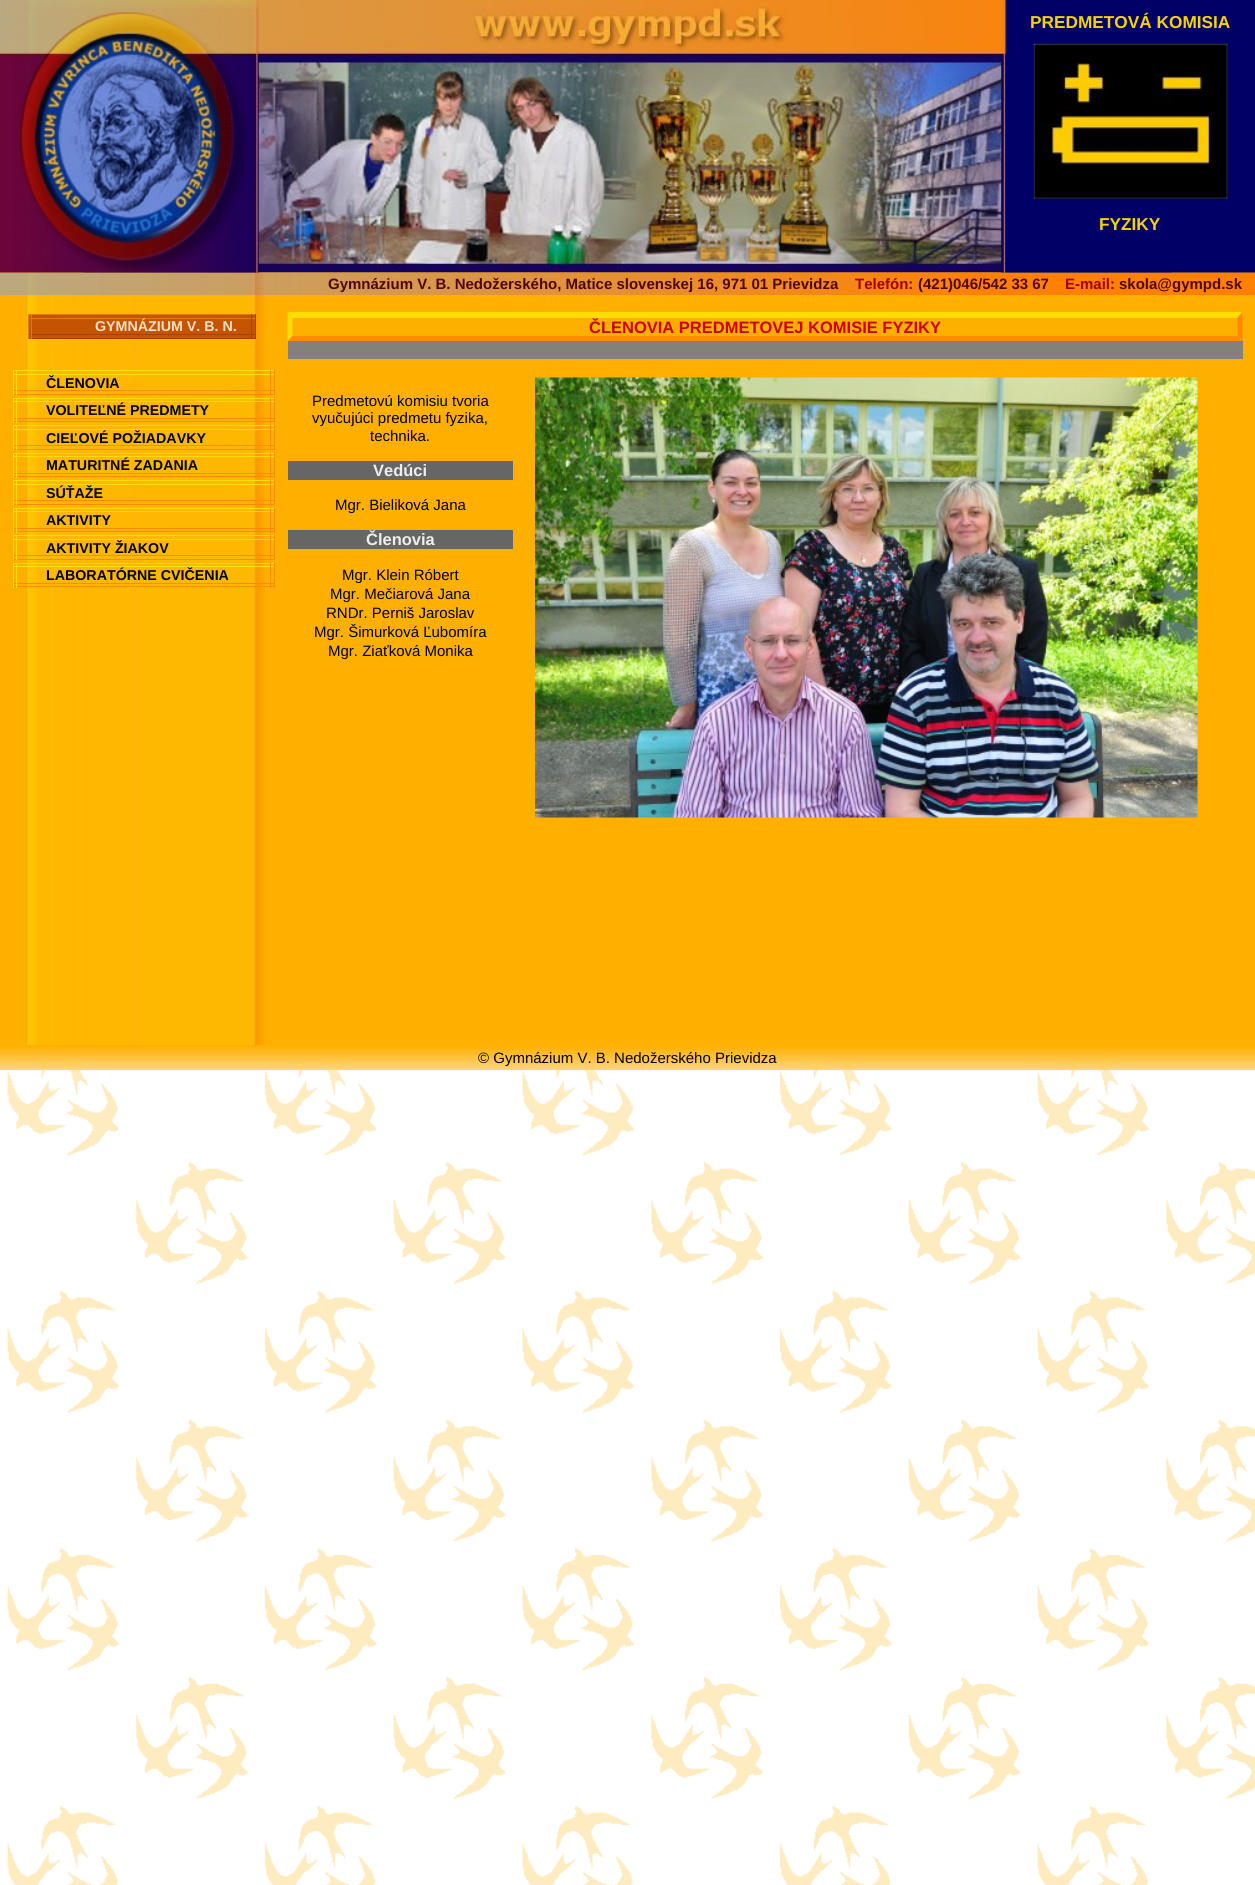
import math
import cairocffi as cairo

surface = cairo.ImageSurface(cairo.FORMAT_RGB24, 1255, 1885)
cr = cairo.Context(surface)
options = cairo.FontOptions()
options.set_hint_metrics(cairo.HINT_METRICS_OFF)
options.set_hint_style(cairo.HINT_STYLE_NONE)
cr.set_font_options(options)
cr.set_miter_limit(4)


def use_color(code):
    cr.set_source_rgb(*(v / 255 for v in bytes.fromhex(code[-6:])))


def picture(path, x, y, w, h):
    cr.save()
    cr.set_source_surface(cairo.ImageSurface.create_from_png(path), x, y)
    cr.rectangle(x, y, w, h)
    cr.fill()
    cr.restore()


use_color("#ffffff")
cr.paint()
picture("img1.png", 7, 1070, 1248, 815)
use_color("#ffaf00")
cr.rectangle(0, 272, 1255, 773)
cr.fill()
picture("img2.png", 83, 0, 1089, 273)
picture("img6.png", 0, 272, 1255, 23)
picture("img3.png", 0, 0, 259, 273)
picture("img4.png", 1001, 0, 254, 273)
cr.select_font_face("Liberation Sans", cairo.FONT_SLANT_NORMAL, cairo.FONT_WEIGHT_BOLD)
cr.set_font_size(17.25)
use_color("#f5d300")
cr.move_to(1030, 28)
cr.show_text("PREDMETOVÁ KOMISIA")
picture("img5.png", 1033, 43, 195, 156)
cr.move_to(1099, 230)
cr.show_text("FYZIKY")
cr.set_font_size(15)
use_color("#50050c")
cr.move_to(328, 289)
cr.show_text("Gymnázium V. B. Nedožerského, Matice slovenskej 16, 971 01 Prievidza")
use_color("#a00000")
cr.move_to(855, 289)
cr.show_text("Telefón:")
use_color("#50050c")
cr.move_to(918, 289)
cr.show_text("(421)046/542 33 67")
use_color("#a00000")
cr.move_to(1065, 289)
cr.show_text("E-mail:")
use_color("#50050c")
cr.move_to(1119, 289)
cr.show_text("skola@gympd.sk")
picture("img7.png", 24, 295, 241, 750)
use_color("#c45400")
cr.rectangle(29, 315, 226, 23)
cr.fill()
use_color("#e47a02")
cr.rectangle(28, 314, 228, 1)
cr.fill()
cr.rectangle(28, 318, 228, 1)
cr.fill()
use_color("#a84100")
cr.rectangle(251, 314, 1, 25)
cr.fill()
cr.rectangle(255, 314, 1, 25)
cr.fill()
cr.rectangle(28, 334, 228, 1)
cr.fill()
cr.rectangle(28, 338, 228, 1)
cr.fill()
use_color("#e47a02")
cr.rectangle(28, 314, 1, 25)
cr.fill()
cr.rectangle(31, 314, 1, 25)
cr.fill()
cr.set_font_size(14.25)
use_color("#ffe1c9")
cr.move_to(95, 331)
cr.show_text("GYMNÁZIUM V. B. N.")
use_color("#ffdd00")
cr.rectangle(13, 370, 262, 1)
cr.fill()
cr.rectangle(13, 374, 262, 1)
cr.fill()
use_color("#fe8a00")
cr.rectangle(270, 370, 1, 25)
cr.fill()
cr.rectangle(274, 370, 1, 25)
cr.fill()
cr.rectangle(13, 390, 262, 1)
cr.fill()
cr.rectangle(13, 394, 262, 1)
cr.fill()
use_color("#ffdd00")
cr.rectangle(13, 370, 1, 25)
cr.fill()
cr.rectangle(16, 370, 1, 25)
cr.fill()
use_color("#000000")
cr.move_to(46, 388)
cr.show_text("ČLENOVIA")
use_color("#ffdd00")
cr.rectangle(13, 398, 262, 1)
cr.fill()
cr.rectangle(13, 401, 262, 1)
cr.fill()
use_color("#fe8a00")
cr.rectangle(270, 398, 1, 25)
cr.fill()
cr.rectangle(274, 398, 1, 25)
cr.fill()
cr.rectangle(13, 418, 262, 1)
cr.fill()
cr.rectangle(13, 421, 262, 1)
cr.fill()
use_color("#ffdd00")
cr.rectangle(13, 398, 1, 25)
cr.fill()
cr.rectangle(16, 398, 1, 25)
cr.fill()
use_color("#000000")
cr.move_to(46, 415)
cr.show_text("VOLITEĽNÉ PREDMETY")
use_color("#ffdd00")
cr.rectangle(13, 425, 262, 1)
cr.fill()
cr.rectangle(13, 429, 262, 1)
cr.fill()
use_color("#fe8a00")
cr.rectangle(270, 425, 1, 25)
cr.fill()
cr.rectangle(274, 425, 1, 25)
cr.fill()
cr.rectangle(13, 445, 262, 1)
cr.fill()
cr.rectangle(13, 449, 262, 1)
cr.fill()
use_color("#ffdd00")
cr.rectangle(13, 425, 1, 25)
cr.fill()
cr.rectangle(16, 425, 1, 25)
cr.fill()
use_color("#000000")
cr.move_to(46, 443)
cr.show_text("CIEĽOVÉ POŽIADAVKY")
use_color("#ffdd00")
cr.rectangle(13, 453, 262, 1)
cr.fill()
cr.rectangle(13, 456, 262, 1)
cr.fill()
use_color("#fe8a00")
cr.rectangle(270, 453, 1, 25)
cr.fill()
cr.rectangle(274, 453, 1, 25)
cr.fill()
cr.rectangle(13, 473, 262, 1)
cr.fill()
cr.rectangle(13, 476, 262, 1)
cr.fill()
use_color("#ffdd00")
cr.rectangle(13, 453, 1, 25)
cr.fill()
cr.rectangle(16, 453, 1, 25)
cr.fill()
use_color("#000000")
cr.move_to(46, 470)
cr.show_text("MATURITNÉ ZADANIA")
use_color("#ffdd00")
cr.rectangle(13, 480, 262, 1)
cr.fill()
cr.rectangle(13, 484, 262, 1)
cr.fill()
use_color("#fe8a00")
cr.rectangle(270, 480, 1, 25)
cr.fill()
cr.rectangle(274, 480, 1, 25)
cr.fill()
cr.rectangle(13, 500, 262, 1)
cr.fill()
cr.rectangle(13, 504, 262, 1)
cr.fill()
use_color("#ffdd00")
cr.rectangle(13, 480, 1, 25)
cr.fill()
cr.rectangle(16, 480, 1, 25)
cr.fill()
use_color("#000000")
cr.move_to(46, 498)
cr.show_text("SÚŤAŽE")
use_color("#ffdd00")
cr.rectangle(13, 508, 262, 1)
cr.fill()
cr.rectangle(13, 511, 262, 1)
cr.fill()
use_color("#fe8a00")
cr.rectangle(270, 508, 1, 25)
cr.fill()
cr.rectangle(274, 508, 1, 25)
cr.fill()
cr.rectangle(13, 528, 262, 1)
cr.fill()
cr.rectangle(13, 531, 262, 1)
cr.fill()
use_color("#ffdd00")
cr.rectangle(13, 508, 1, 25)
cr.fill()
cr.rectangle(16, 508, 1, 25)
cr.fill()
use_color("#000000")
cr.move_to(46, 525)
cr.show_text("AKTIVITY")
use_color("#ffdd00")
cr.rectangle(13, 535, 262, 1)
cr.fill()
cr.rectangle(13, 539, 262, 1)
cr.fill()
use_color("#fe8a00")
cr.rectangle(270, 535, 1, 25)
cr.fill()
cr.rectangle(274, 535, 1, 25)
cr.fill()
cr.rectangle(13, 555, 262, 1)
cr.fill()
cr.rectangle(13, 559, 262, 1)
cr.fill()
use_color("#ffdd00")
cr.rectangle(13, 535, 1, 25)
cr.fill()
cr.rectangle(16, 535, 1, 25)
cr.fill()
use_color("#000000")
cr.move_to(46, 553)
cr.show_text("AKTIVITY ŽIAKOV")
use_color("#ffdd00")
cr.rectangle(13, 563, 262, 1)
cr.fill()
cr.rectangle(13, 566, 262, 1)
cr.fill()
use_color("#fe8a00")
cr.rectangle(270, 563, 1, 25)
cr.fill()
cr.rectangle(274, 563, 1, 25)
cr.fill()
cr.rectangle(13, 583, 262, 1)
cr.fill()
cr.rectangle(13, 586, 262, 1)
cr.fill()
use_color("#ffdd00")
cr.rectangle(13, 563, 1, 25)
cr.fill()
cr.rectangle(16, 563, 1, 25)
cr.fill()
use_color("#000000")
cr.move_to(46, 580)
cr.show_text("LABORATÓRNE CVIČENIA")
use_color("#ffdd00")
cr.new_path()
cr.move_to(288, 312)
cr.line_to(1242, 312)
cr.line_to(1238, 318)
cr.line_to(292, 318)
cr.close_path()
cr.fill()
use_color("#fe8a00")
cr.new_path()
cr.move_to(1242.5, 312.5)
cr.line_to(1242.5, 341)
cr.line_to(1237.5, 336)
cr.line_to(1237.5, 317.5)
cr.close_path()
cr.fill()
cr.new_path()
cr.move_to(1242, 341)
cr.line_to(288, 341)
cr.line_to(292, 336)
cr.line_to(1238, 336)
cr.close_path()
cr.fill()
use_color("#ffdd00")
cr.new_path()
cr.move_to(287.5, 341)
cr.line_to(287.5, 312.5)
cr.line_to(292.5, 317.5)
cr.line_to(292.5, 336)
cr.close_path()
cr.fill()
cr.set_font_size(16.5)
use_color("#cc0000")
cr.move_to(589, 333)
cr.show_text("ČLENOVIA PREDMETOVEJ KOMISIE FYZIKY")
use_color("#84817a")
cr.rectangle(288, 341, 955, 18)
cr.fill()
cr.select_font_face("Liberation Sans")
cr.set_font_size(15)
use_color("#000000")
cr.move_to(312, 406)
cr.show_text("Predmetovú komisiu tvoria")
cr.move_to(312, 423)
cr.show_text("vyučujúci predmetu fyzika,")
cr.move_to(370, 441)
cr.show_text("technika.")
use_color("#666666")
cr.rectangle(288, 461, 225, 19)
cr.fill()
cr.select_font_face("Liberation Sans", cairo.FONT_SLANT_NORMAL, cairo.FONT_WEIGHT_BOLD)
cr.set_font_size(16.5)
use_color("#eeeeee")
cr.move_to(373, 476)
cr.show_text("Vedúci")
cr.select_font_face("Liberation Sans")
cr.set_font_size(15)
use_color("#000000")
cr.move_to(335, 510)
cr.show_text("Mgr. Bieliková Jana")
use_color("#666666")
cr.rectangle(288, 530, 225, 19)
cr.fill()
cr.select_font_face("Liberation Sans", cairo.FONT_SLANT_NORMAL, cairo.FONT_WEIGHT_BOLD)
cr.set_font_size(16.5)
use_color("#eeeeee")
cr.move_to(366, 545)
cr.show_text("Členovia")
cr.select_font_face("Liberation Sans")
cr.set_font_size(15)
use_color("#000000")
cr.move_to(342, 580)
cr.show_text("Mgr. Klein Róbert")
cr.move_to(330, 599)
cr.show_text("Mgr. Mečiarová Jana")
cr.move_to(326, 618)
cr.show_text("RNDr. Perniš Jaroslav")
cr.move_to(314, 637)
cr.show_text("Mgr. Šimurková Ľubomíra")
cr.move_to(328, 656)
cr.show_text("Mgr. Ziaťková Monika")
picture("img8.png", 535, 377, 663, 441)
picture("img9.png", 0, 1045, 1255, 25)
cr.move_to(478, 1063)
cr.show_text("© Gymnázium V. B. Nedožerského Prievidza")
surface.write_to_png("result.png")
